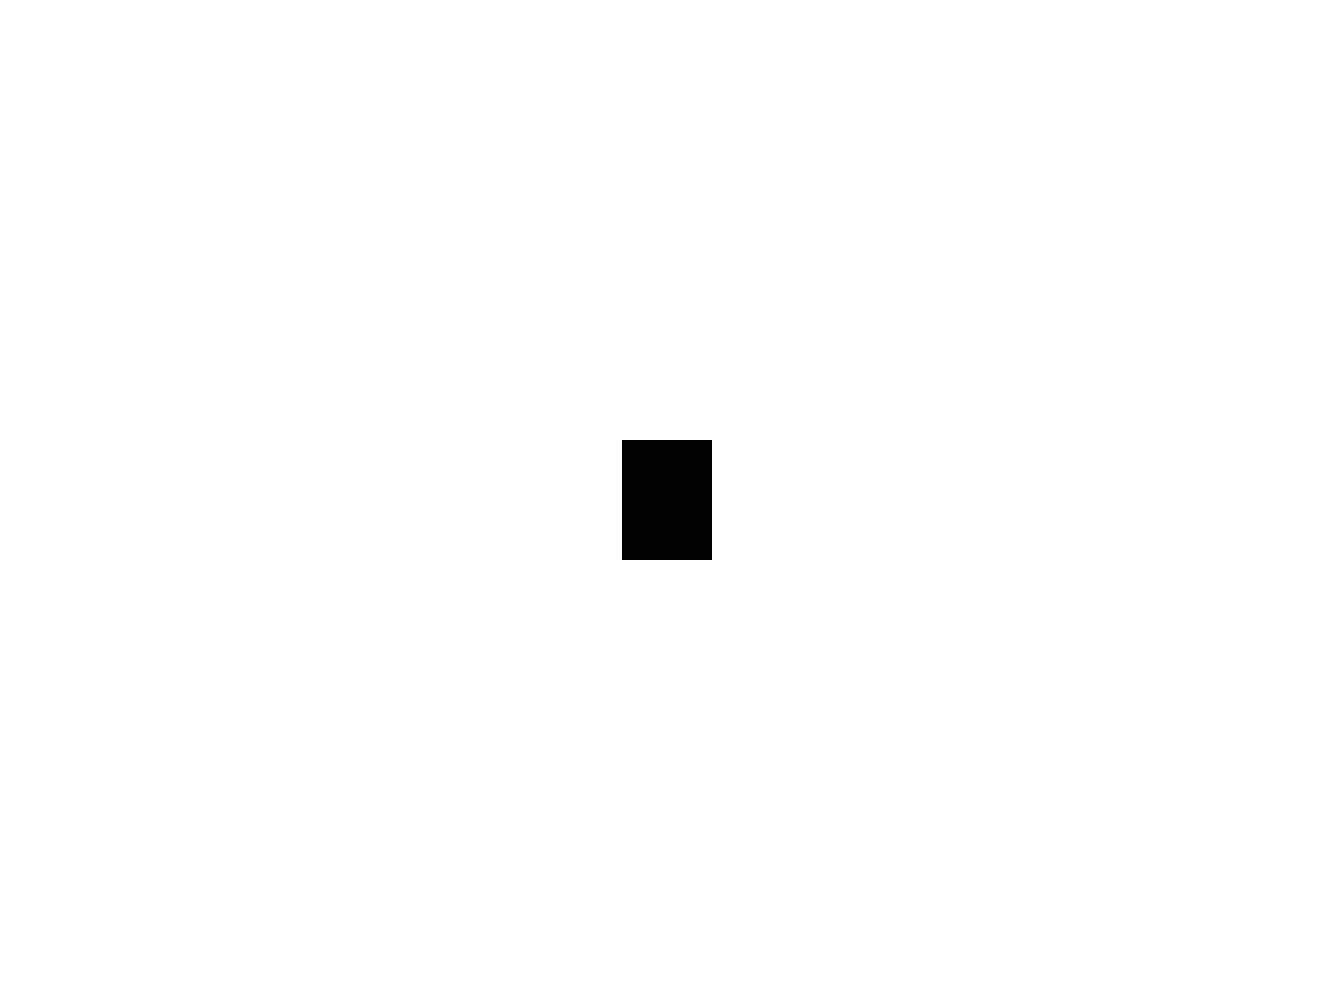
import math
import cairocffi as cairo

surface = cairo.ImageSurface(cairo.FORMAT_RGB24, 1332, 997)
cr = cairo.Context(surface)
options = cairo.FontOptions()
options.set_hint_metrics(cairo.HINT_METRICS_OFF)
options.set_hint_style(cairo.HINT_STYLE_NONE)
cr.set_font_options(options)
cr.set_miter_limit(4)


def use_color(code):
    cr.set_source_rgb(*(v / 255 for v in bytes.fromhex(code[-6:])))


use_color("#ffffff")
cr.paint()
use_color("#000000")
cr.rectangle(622, 440, 90, 120)
cr.fill()
surface.write_to_png("result.png")
